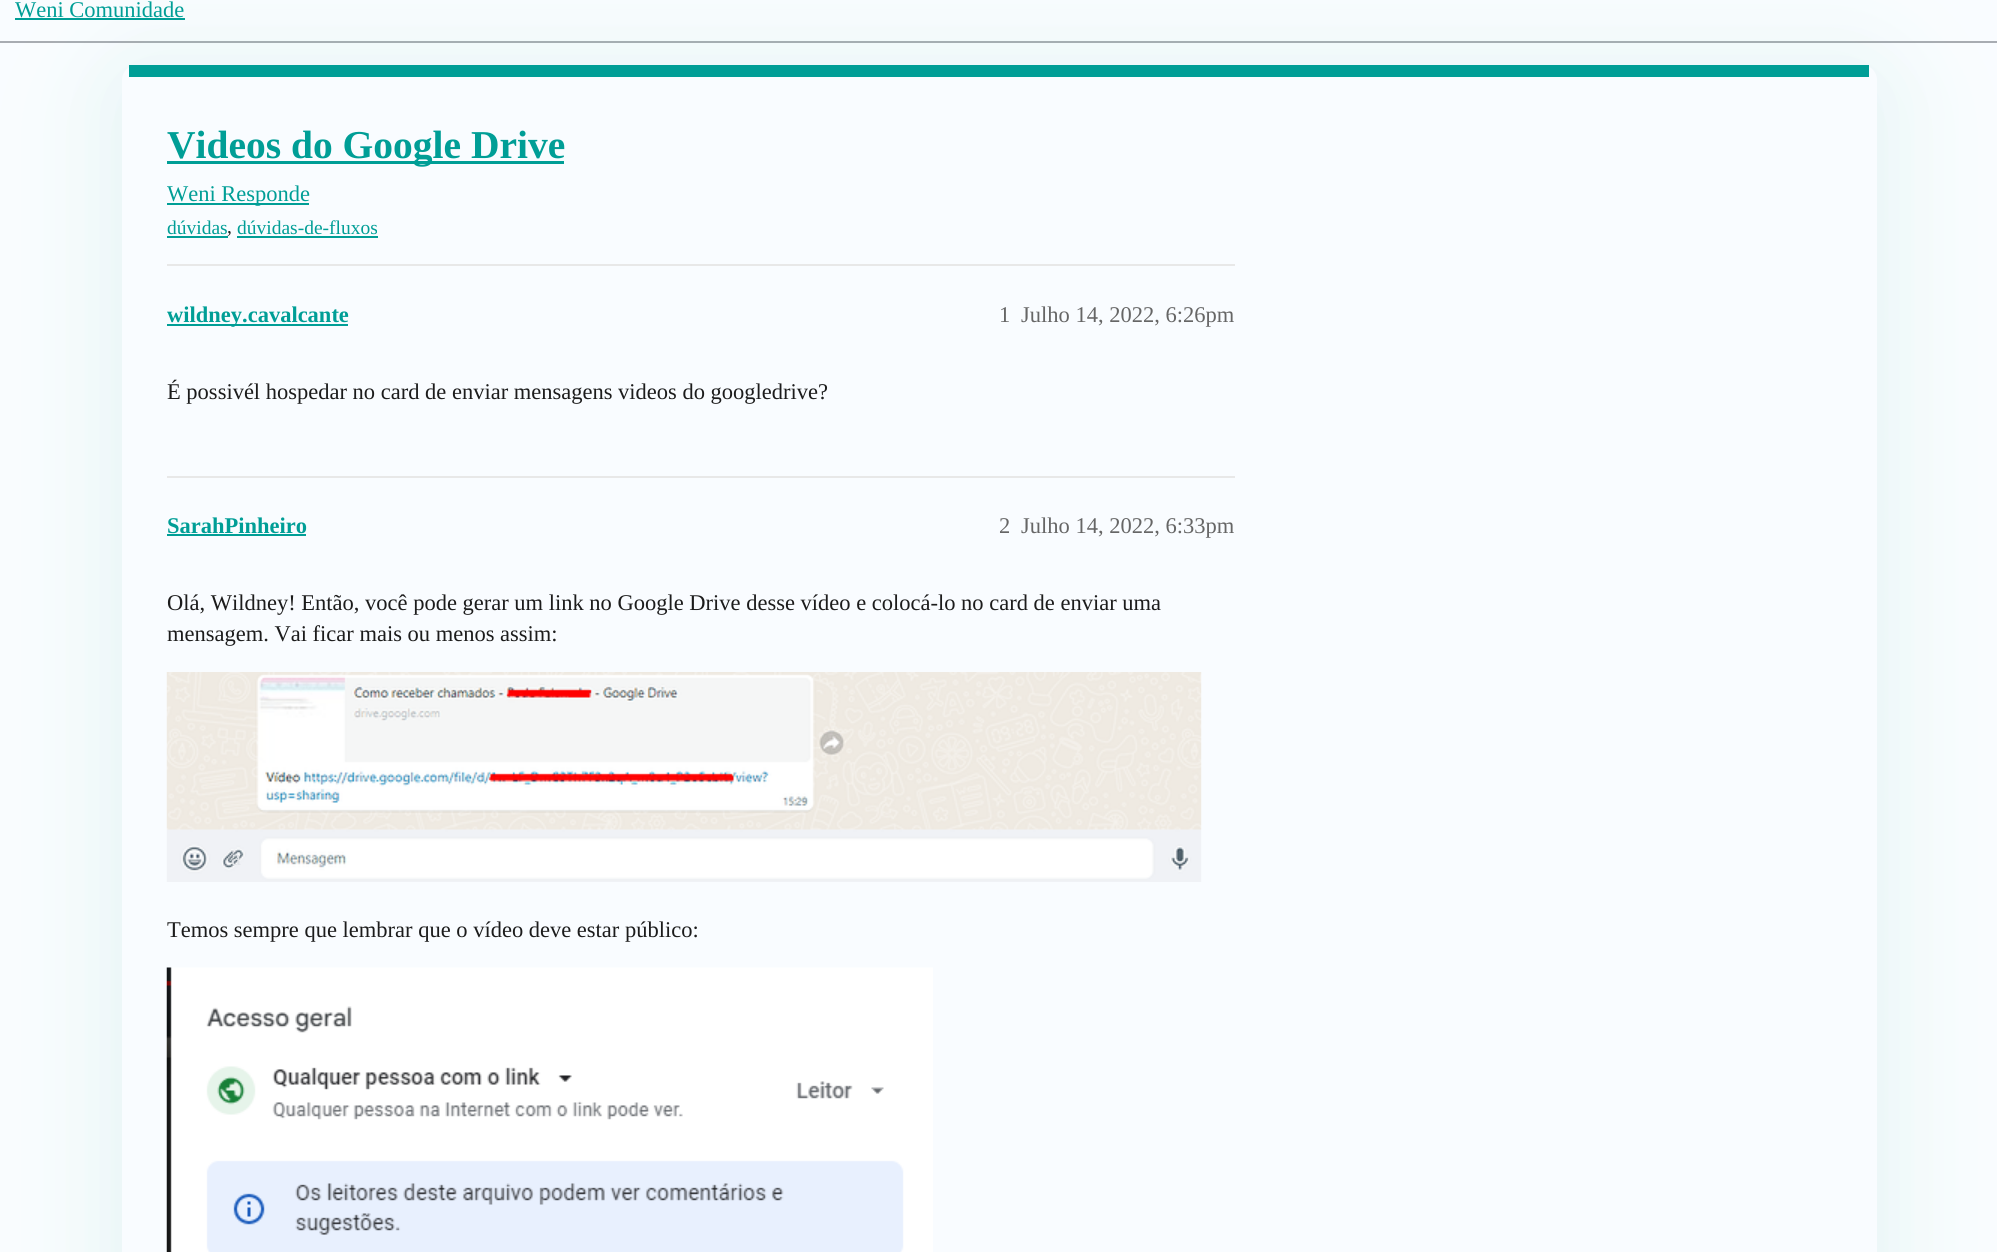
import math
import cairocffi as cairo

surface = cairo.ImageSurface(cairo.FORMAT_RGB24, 1997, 1252)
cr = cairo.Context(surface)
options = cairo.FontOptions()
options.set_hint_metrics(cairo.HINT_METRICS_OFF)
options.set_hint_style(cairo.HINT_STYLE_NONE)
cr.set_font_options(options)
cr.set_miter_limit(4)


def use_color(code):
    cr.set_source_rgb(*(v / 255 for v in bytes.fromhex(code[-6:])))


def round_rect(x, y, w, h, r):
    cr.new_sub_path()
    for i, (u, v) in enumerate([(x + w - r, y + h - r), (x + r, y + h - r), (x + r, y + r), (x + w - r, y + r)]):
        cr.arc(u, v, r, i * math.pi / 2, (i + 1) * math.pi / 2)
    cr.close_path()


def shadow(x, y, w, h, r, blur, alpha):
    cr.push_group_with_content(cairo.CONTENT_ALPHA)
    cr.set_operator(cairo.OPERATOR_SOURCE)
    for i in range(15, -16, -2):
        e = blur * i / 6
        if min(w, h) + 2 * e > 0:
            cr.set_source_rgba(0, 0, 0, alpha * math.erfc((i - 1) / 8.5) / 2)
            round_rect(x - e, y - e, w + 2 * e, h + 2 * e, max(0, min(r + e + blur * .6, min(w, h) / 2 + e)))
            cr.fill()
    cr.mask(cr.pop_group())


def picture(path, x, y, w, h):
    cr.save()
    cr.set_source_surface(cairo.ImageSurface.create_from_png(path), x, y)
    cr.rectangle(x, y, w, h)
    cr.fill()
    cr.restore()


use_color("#f9fcff")
cr.paint()
use_color("#a8acb2")
cr.rectangle(0, 41, 1997, 2)
cr.fill()
use_color("#85ff67")
shadow(122, 83, 1755, 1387, 15, 67.5, 0.1)
use_color("#6797ff")
shadow(122, 77, 1755, 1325, 15, 45, 0.1)
cr.select_font_face("Liberation Serif")
cr.set_font_size(22.5)
use_color("#009e96")
cr.move_to(15, 17)
cr.show_text("Weni Comunidade")
cr.rectangle(15, 18, 170, 2)
cr.fill()
use_color("#f9fcff")
round_rect(122, 65, 1755, 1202, 15)
cr.fill()
use_color("#009e96")
cr.rectangle(129, 65, 1740, 12)
cr.fill()
cr.rectangle(167, 161, 397, 3)
cr.fill()
cr.select_font_face("Liberation Serif", cairo.FONT_SLANT_NORMAL, cairo.FONT_WEIGHT_BOLD)
cr.set_font_size(39.5)
cr.move_to(167, 158)
cr.show_text("Videos do Google Drive")
cr.rectangle(167, 203, 142, 2)
cr.fill()
cr.select_font_face("Liberation Serif")
cr.set_font_size(22.5)
cr.move_to(167, 201)
cr.show_text("Weni Responde")
cr.set_font_size(19.5)
cr.move_to(167, 234)
cr.show_text("dúvidas")
cr.rectangle(167, 236, 61, 2)
cr.fill()
use_color("#1c1c1c")
cr.move_to(227, 233)
cr.show_text(",")
use_color("#009e96")
cr.move_to(237, 234)
cr.show_text("dúvidas-de-fluxos")
cr.rectangle(237, 236, 141, 2)
cr.fill()
use_color("#e8e8e8")
cr.rectangle(167, 264, 1068, 2)
cr.fill()
use_color("#009e96")
cr.rectangle(167, 324, 181, 2)
cr.fill()
cr.select_font_face("Liberation Serif", cairo.FONT_SLANT_NORMAL, cairo.FONT_WEIGHT_BOLD)
cr.set_font_size(22.5)
cr.move_to(167, 322)
cr.show_text("wildney.cavalcante")
cr.select_font_face("Liberation Serif")
use_color("#666666")
cr.move_to(999, 322)
cr.show_text("1")
cr.move_to(1021, 322)
cr.show_text("Julho 14, 2022, 6:26pm")
use_color("#1c1c1c")
cr.move_to(167, 399)
cr.show_text("É possivél hospedar no card de enviar mensagens videos do googledrive?")
use_color("#e8e8e8")
cr.rectangle(167, 476, 1068, 2)
cr.fill()
cr.select_font_face("Liberation Serif", cairo.FONT_SLANT_NORMAL, cairo.FONT_WEIGHT_BOLD)
use_color("#009e96")
cr.move_to(167, 533)
cr.show_text("SarahPinheiro")
cr.rectangle(167, 534, 139, 2)
cr.fill()
cr.select_font_face("Liberation Serif")
use_color("#666666")
cr.move_to(999, 533)
cr.show_text("2")
cr.move_to(1021, 533)
cr.show_text("Julho 14, 2022, 6:33pm")
use_color("#1c1c1c")
cr.move_to(167, 610)
cr.show_text("Olá, Wildney! Então, você pode gerar um link no Google Drive desse vídeo e colocá-lo no card de enviar uma")
cr.move_to(167, 641)
cr.show_text("mensagem. Vai ficar mais ou menos assim:")
picture("img1.png", 166, 672, 1036, 210)
use_color("#e2e5e9")
cr.move_to(231, 865)
cr.show_text("a")
cr.save()
cr.rectangle(167, 564, 1068, 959)
cr.clip()
use_color("#1c1c1c")
cr.move_to(167, 937)
cr.show_text("Temos sempre que lembrar que o vídeo deve estar público:")
cr.restore()
picture("img2.png", 166, 967, 767, 285)
surface.write_to_png("result.png")
